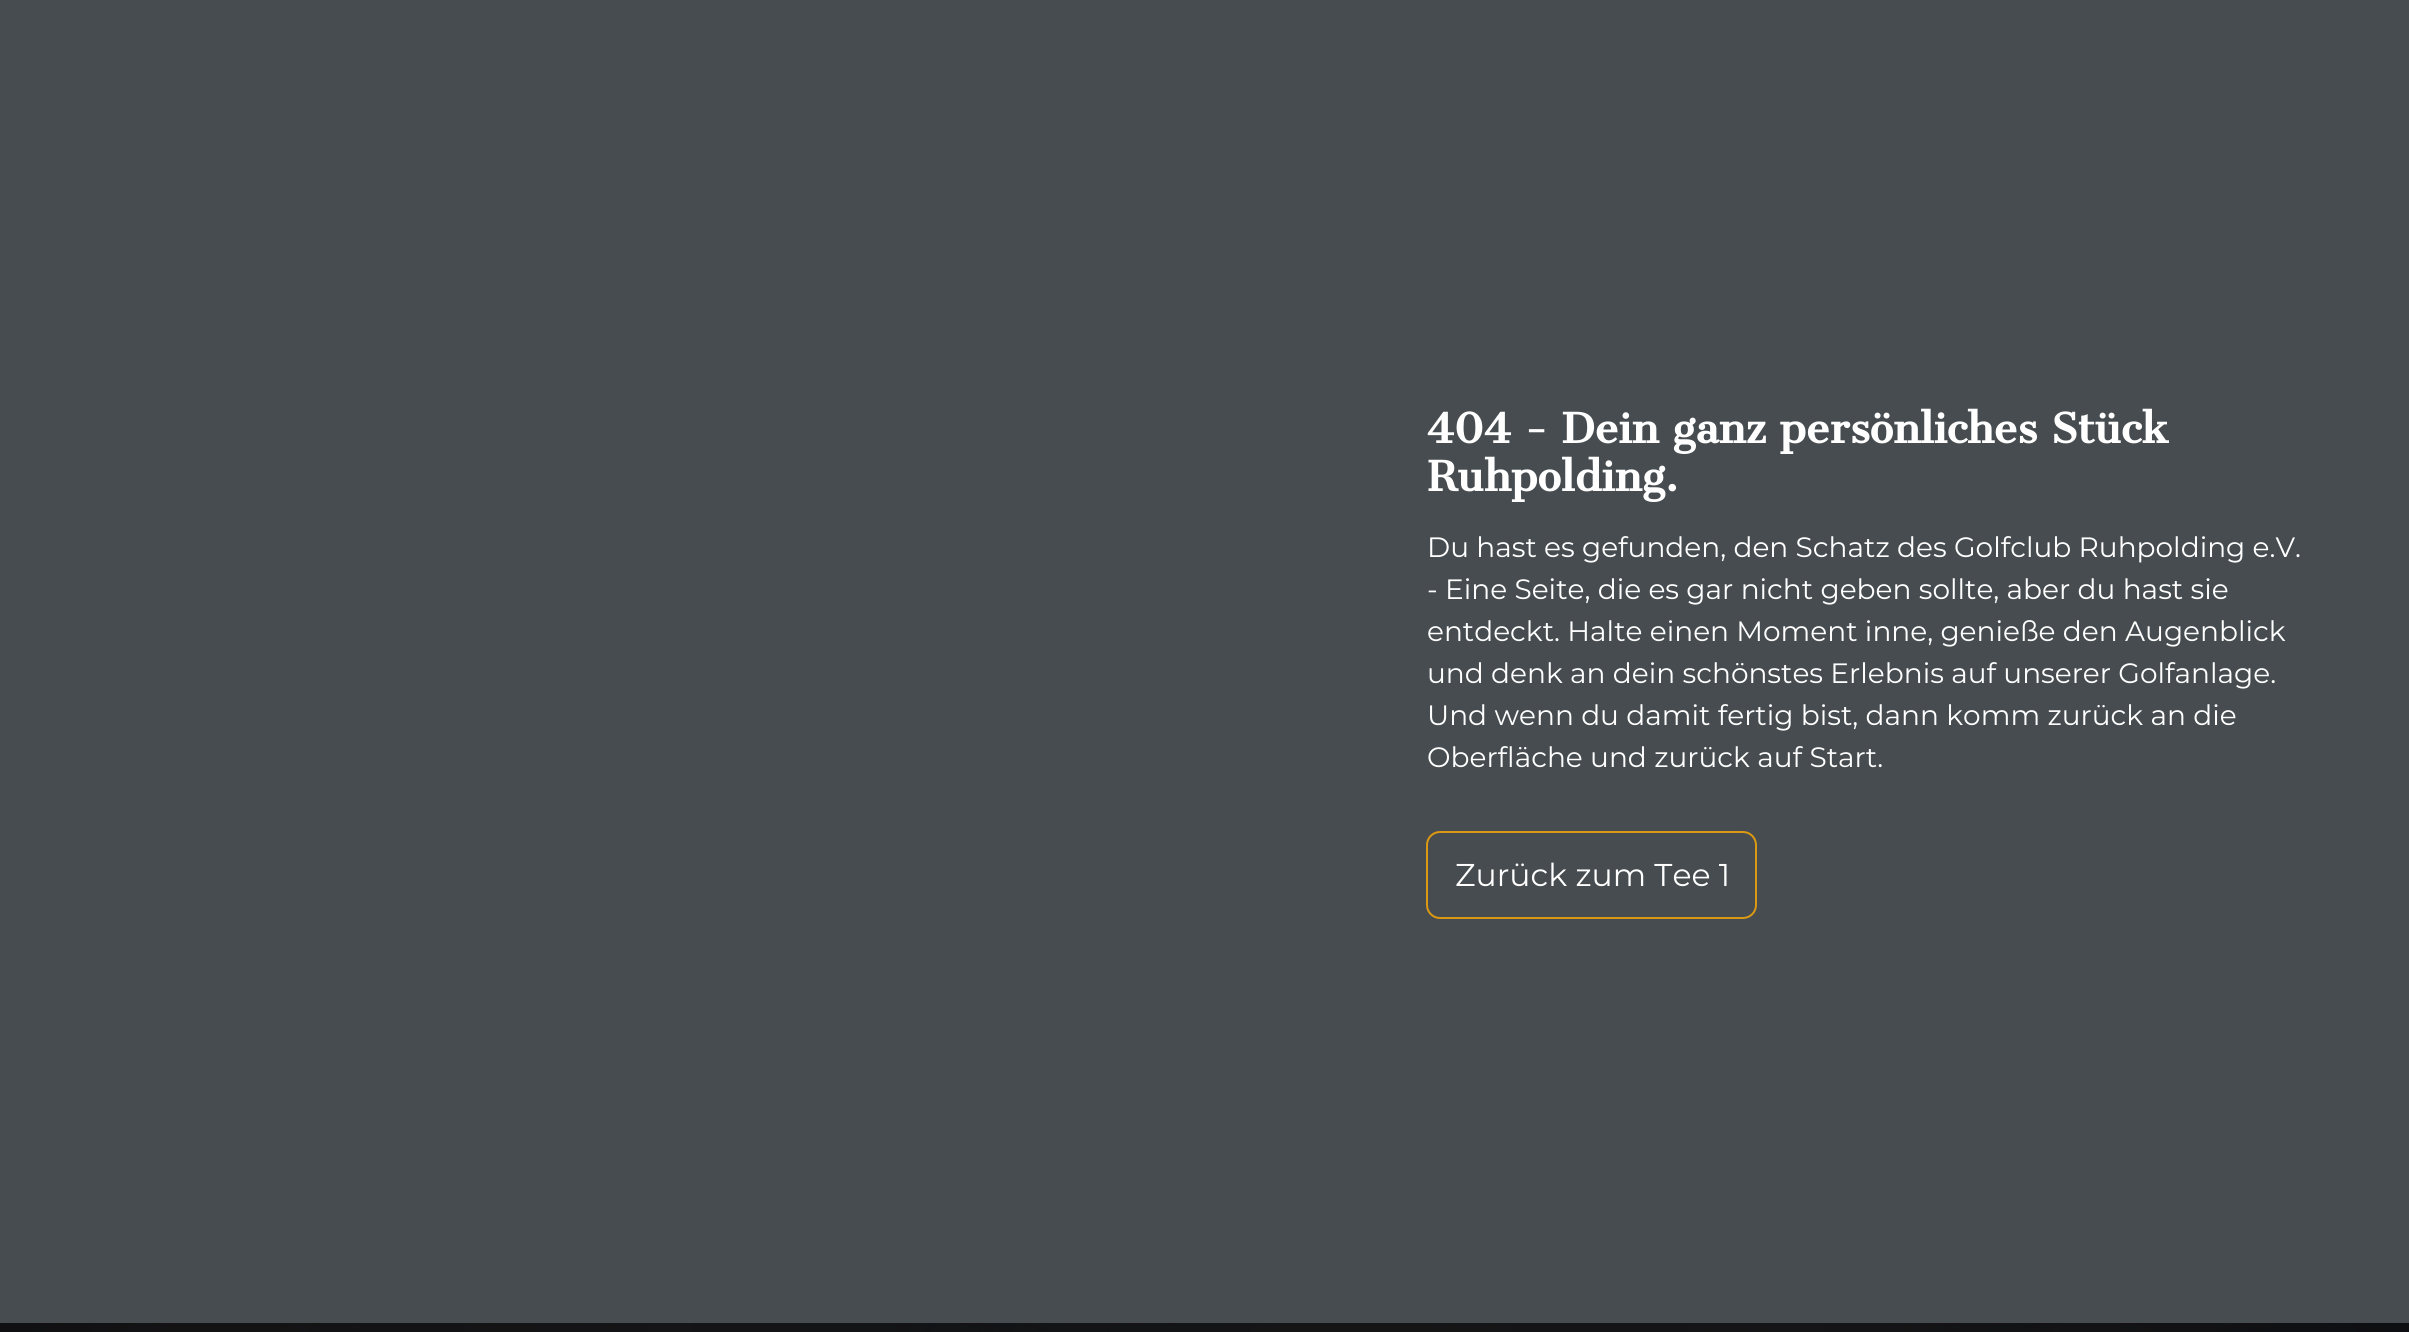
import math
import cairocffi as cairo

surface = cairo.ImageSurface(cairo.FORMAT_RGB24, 2409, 1332)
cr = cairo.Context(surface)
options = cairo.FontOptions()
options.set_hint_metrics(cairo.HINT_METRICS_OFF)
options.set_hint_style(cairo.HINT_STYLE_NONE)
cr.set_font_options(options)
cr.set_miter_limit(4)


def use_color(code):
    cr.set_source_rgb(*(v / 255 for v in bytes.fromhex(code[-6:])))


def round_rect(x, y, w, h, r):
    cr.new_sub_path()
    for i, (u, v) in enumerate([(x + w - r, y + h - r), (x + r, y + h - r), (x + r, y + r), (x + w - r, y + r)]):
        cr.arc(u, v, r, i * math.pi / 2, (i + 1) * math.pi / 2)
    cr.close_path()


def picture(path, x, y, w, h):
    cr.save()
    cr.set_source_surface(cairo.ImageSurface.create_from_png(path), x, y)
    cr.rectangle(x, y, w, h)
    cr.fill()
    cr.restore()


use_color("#464c4f")
cr.paint()
cr.select_font_face("Cantata One", cairo.FONT_SLANT_NORMAL, cairo.FONT_WEIGHT_BOLD)
cr.set_font_size(40.25)
use_color("#ffffff")
cr.move_to(1427, 443)
cr.show_text("404 - Dein ganz persönliches Stück")
cr.move_to(1427, 491)
cr.show_text("Ruhpolding.")
cr.select_font_face("Montserrat")
cr.set_font_size(28)
cr.move_to(1427, 557)
cr.show_text("Du hast es gefunden, den Schatz des Golfclub Ruhpolding e.V.")
cr.move_to(1427, 599)
cr.show_text("- Eine Seite, die es gar nicht geben sollte, aber du hast sie")
cr.move_to(1427, 641)
cr.show_text("entdeckt. Halte einen Moment inne, genieße den Augenblick")
cr.move_to(1427, 683)
cr.show_text("und denk an dein schönstes Erlebnis auf unserer Golfanlage.")
cr.move_to(1427, 725)
cr.show_text("Und wenn du damit fertig bist, dann komm zurück an die")
cr.move_to(1427, 767)
cr.show_text("Oberfläche und zurück auf Start.")
round_rect(1427, 832, 329, 86, 13)
use_color("#db9813")
cr.stroke()
cr.set_font_size(31.5)
use_color("#ffffff")
cr.move_to(1455, 886)
cr.show_text("Zurück zum Tee 1")
picture("img1.png", 0, 1323, 2409, 9)
surface.write_to_png("result.png")
